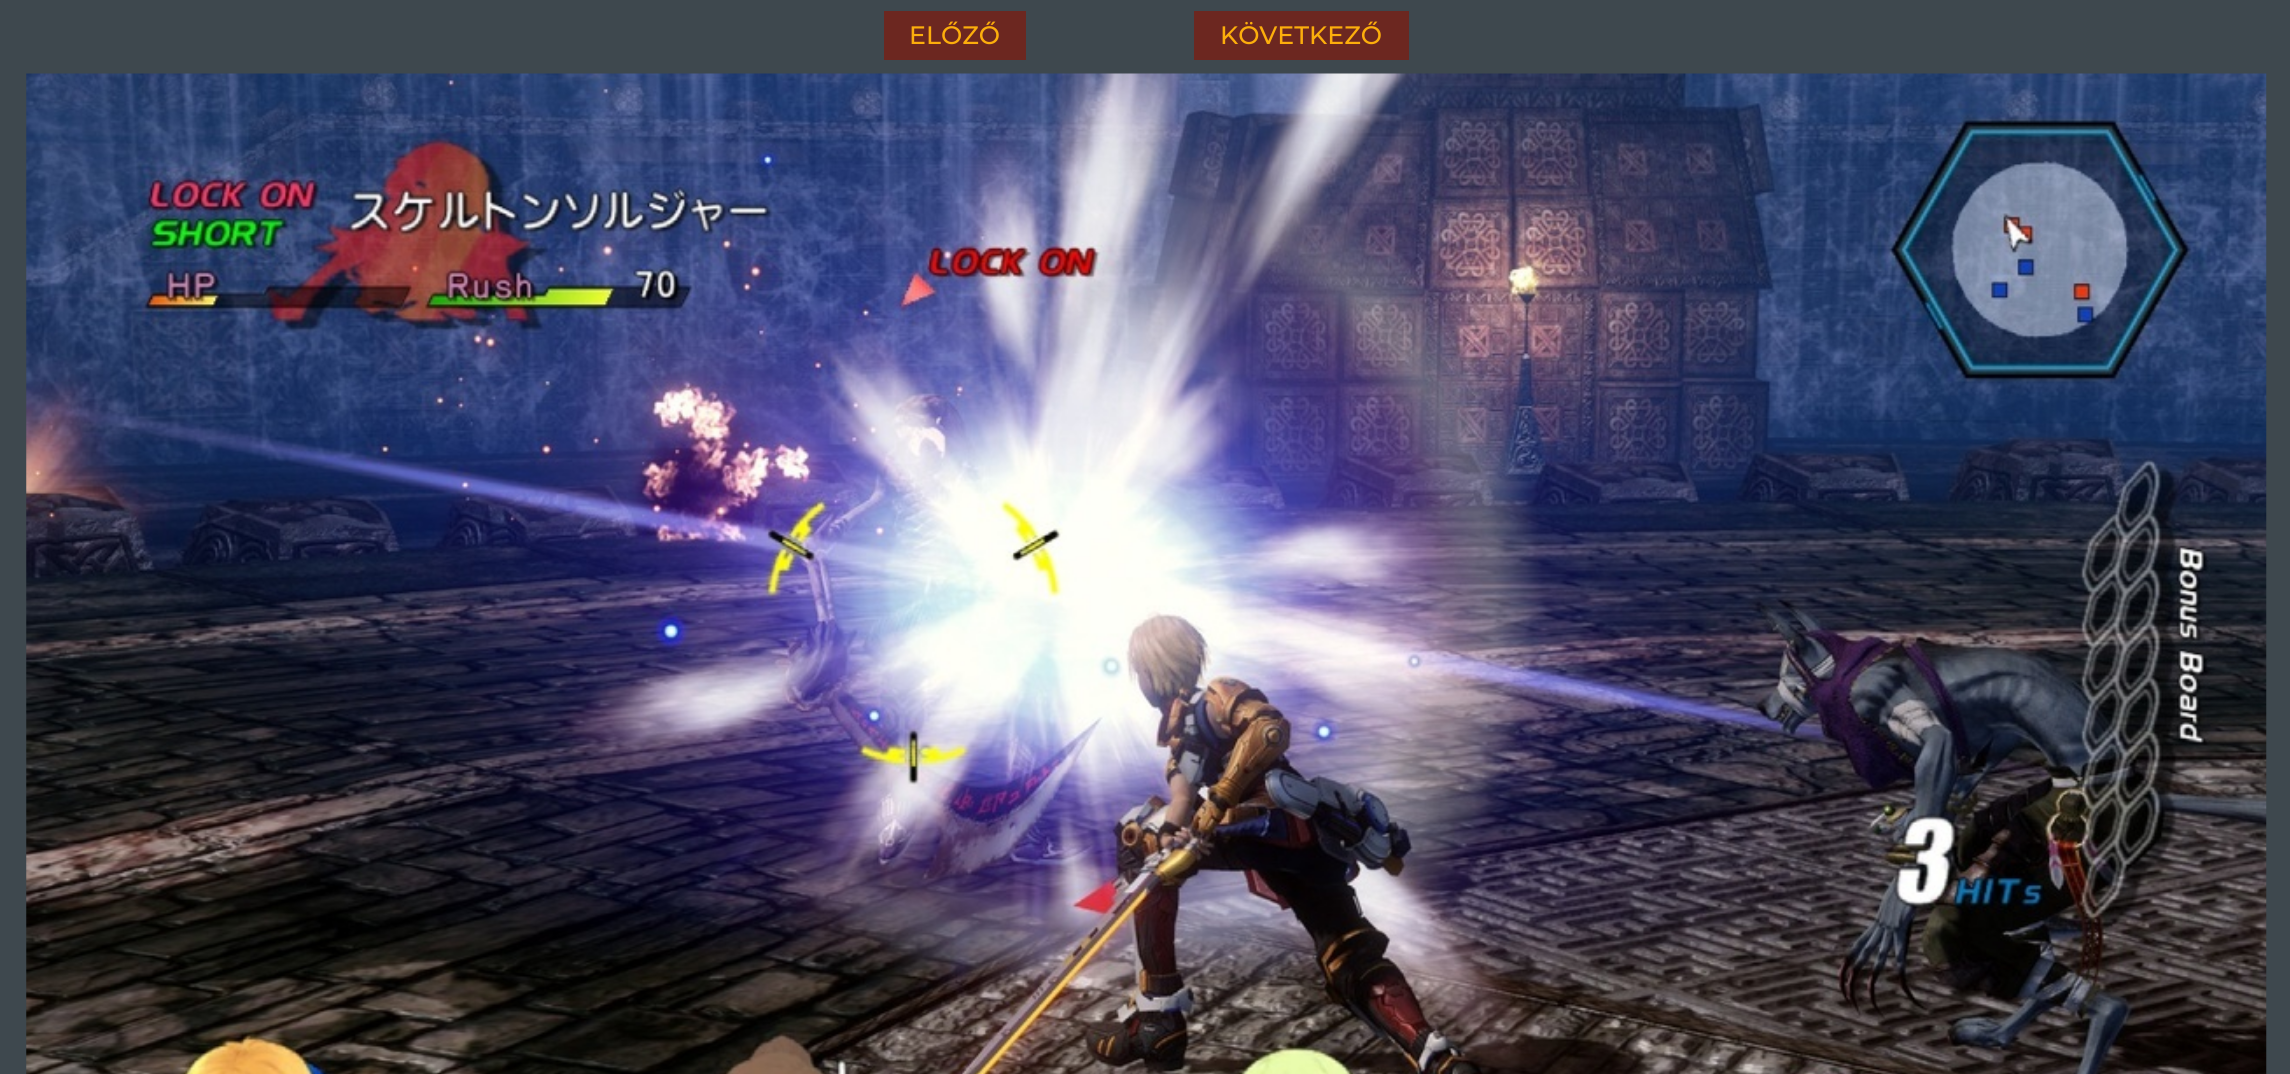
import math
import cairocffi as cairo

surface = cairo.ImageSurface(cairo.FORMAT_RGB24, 2290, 1074)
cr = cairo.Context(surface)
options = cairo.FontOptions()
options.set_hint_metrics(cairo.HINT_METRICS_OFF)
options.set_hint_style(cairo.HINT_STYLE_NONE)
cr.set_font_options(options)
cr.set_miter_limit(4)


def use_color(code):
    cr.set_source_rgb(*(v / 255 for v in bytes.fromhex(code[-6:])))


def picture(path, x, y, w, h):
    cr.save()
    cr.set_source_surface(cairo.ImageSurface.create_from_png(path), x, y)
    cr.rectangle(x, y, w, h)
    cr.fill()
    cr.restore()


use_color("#3e484e")
cr.paint()
use_color("#6c2720")
cr.rectangle(884, 11, 142, 49)
cr.fill()
cr.select_font_face("Montserrat Medium")
cr.set_font_size(25.25)
use_color("#fcae0c")
cr.move_to(909, 44)
cr.show_text("ELŐZŐ")
use_color("#6c2720")
cr.rectangle(1194, 11, 215, 49)
cr.fill()
use_color("#fcae0c")
cr.move_to(1220, 44)
cr.show_text("KÖVETKEZŐ")
picture("img1.png", 26, 73, 2241, 1001)
surface.write_to_png("result.png")
